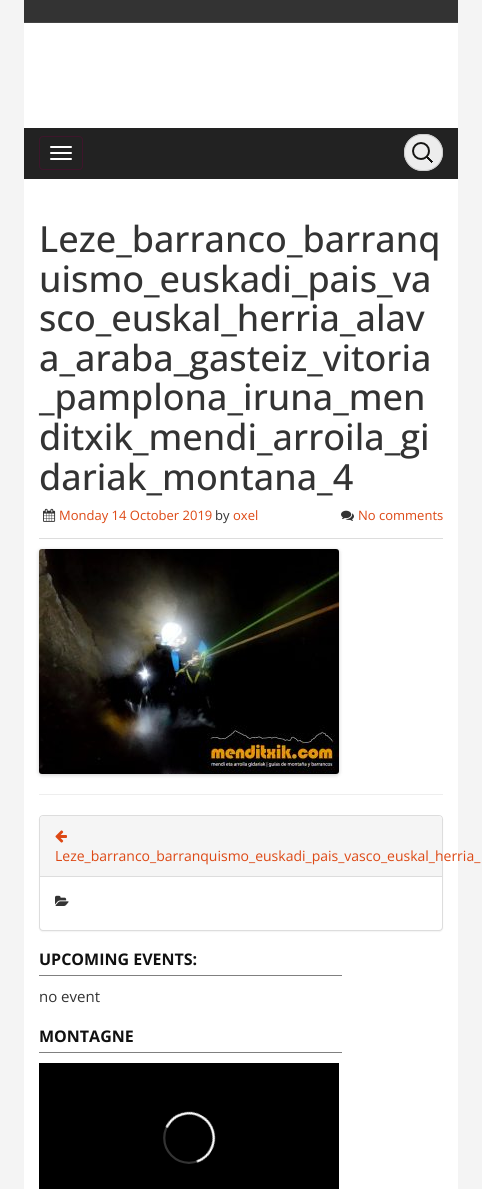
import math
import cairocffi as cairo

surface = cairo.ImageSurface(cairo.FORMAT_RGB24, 482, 1189)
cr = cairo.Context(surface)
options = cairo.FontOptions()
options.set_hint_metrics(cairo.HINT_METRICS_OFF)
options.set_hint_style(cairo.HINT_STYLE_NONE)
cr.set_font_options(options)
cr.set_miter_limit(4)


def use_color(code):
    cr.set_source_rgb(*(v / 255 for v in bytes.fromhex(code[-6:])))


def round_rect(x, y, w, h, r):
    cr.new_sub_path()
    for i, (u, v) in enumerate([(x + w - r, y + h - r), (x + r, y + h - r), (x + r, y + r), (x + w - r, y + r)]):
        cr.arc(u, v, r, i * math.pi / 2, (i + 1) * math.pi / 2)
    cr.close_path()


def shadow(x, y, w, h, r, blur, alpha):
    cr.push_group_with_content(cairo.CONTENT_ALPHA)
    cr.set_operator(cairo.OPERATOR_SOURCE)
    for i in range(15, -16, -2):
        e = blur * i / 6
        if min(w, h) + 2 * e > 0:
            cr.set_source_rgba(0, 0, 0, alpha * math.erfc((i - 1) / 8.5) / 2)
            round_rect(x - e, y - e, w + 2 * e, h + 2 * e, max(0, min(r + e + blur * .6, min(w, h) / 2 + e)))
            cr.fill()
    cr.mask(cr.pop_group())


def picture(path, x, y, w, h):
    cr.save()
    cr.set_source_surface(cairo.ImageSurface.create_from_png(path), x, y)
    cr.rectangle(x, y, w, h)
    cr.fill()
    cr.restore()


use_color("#f4f4f4")
cr.paint()
use_color("#ffffff")
cr.rectangle(24, 23, 434, 1166)
cr.fill()
use_color("#333333")
cr.rectangle(24, 0, 434, 22)
cr.fill()
use_color("#444444")
cr.rectangle(24, 22, 434, 1)
cr.fill()
use_color("#222222")
cr.rectangle(24, 128, 434, 51)
cr.fill()
round_rect(39.5, 136.5, 43, 33, 3.5)
use_color("#3e152b")
cr.set_line_width(1)
cr.stroke()
use_color("#ffffff")
round_rect(50, 146, 22, 2, 1)
cr.fill()
round_rect(50, 152, 22, 2, 1)
cr.fill()
round_rect(50, 158, 22, 2, 1)
cr.fill()
use_color("#ededed")
round_rect(404, 134, 39, 37, 18.5)
cr.fill()
picture("img1.png", 412, 142, 21, 21)
round_rect(404.5, 134.5, 38, 36, 18)
use_color("#cccccc")
cr.stroke()
cr.select_font_face("Open Sans Medium")
cr.set_font_size(36)
use_color("#333333")
cr.move_to(39, 252)
cr.show_text("Leze_barranco_barranq")
cr.move_to(39, 292)
cr.show_text("uismo_euskadi_pais_va")
cr.move_to(39, 331)
cr.show_text("sco_euskal_herria_alav")
cr.move_to(39, 371)
cr.show_text("a_araba_gasteiz_vitoria")
cr.move_to(39, 410)
cr.show_text("_pamplona_iruna_men")
cr.move_to(39, 450)
cr.show_text("ditxik_mendi_arroila_gi")
cr.move_to(39, 490)
cr.show_text("dariak_montana_4")
picture("img2.png", 43, 508, 13, 14)
cr.select_font_face("Open Sans")
cr.set_font_size(13)
use_color("#dd4814")
cr.move_to(59, 520)
cr.show_text("Monday 14 October 2019")
use_color("#333333")
cr.move_to(215, 520)
cr.show_text("by")
use_color("#dd4814")
cr.move_to(233, 520)
cr.show_text("oxel")
picture("img3.png", 341, 510, 13, 11)
cr.move_to(358, 520)
cr.show_text("No comments")
use_color("#dddddd")
cr.rectangle(39, 538, 404, 1)
cr.fill()
use_color("#000000")
shadow(39, 550, 300, 225, 3, 2, 0.2)
picture("img4.png", 39, 549, 300, 225)
use_color("#eeeeee")
cr.rectangle(39, 794, 404, 1)
cr.fill()
use_color("#000000")
shadow(39, 816, 404, 116, 4, 0.5, 0.05)
use_color("#ffffff")
round_rect(39.5, 815.5, 403, 115, 3.5)
cr.fill_preserve()
use_color("#dddddd")
cr.stroke()
use_color("#f5f5f5")
cr.new_path()
cr.move_to(43, 816)
cr.line_to(439, 816)
cr.curve_to(440.5, 816, 442, 817.5, 442, 819)
cr.line_to(442, 877)
cr.line_to(40, 877)
cr.line_to(40, 819)
cr.curve_to(40, 817.5, 41.5, 816, 43, 816)
cr.close_path()
cr.fill()
use_color("#dddddd")
cr.rectangle(40, 876, 402, 1)
cr.fill()
picture("img5.png", 55, 830, 12, 13)
cr.set_font_size(14)
use_color("#dd4814")
cr.move_to(55, 861)
cr.show_text("Leze_barranco_barranquismo_euskadi_pais_vasco_euskal_herria_")
picture("img6.png", 55, 895, 14, 11)
cr.select_font_face("Open Sans", cairo.FONT_SLANT_NORMAL, cairo.FONT_WEIGHT_BOLD)
cr.set_font_size(16)
use_color("#111111")
cr.move_to(39, 965)
cr.show_text("UPCOMING EVENTS:")
use_color("#808080")
cr.rectangle(39, 975, 303, 1)
cr.fill()
cr.select_font_face("Open Sans")
cr.set_font_size(15)
use_color("#333333")
cr.move_to(39, 1002)
cr.show_text("no event")
cr.select_font_face("Open Sans", cairo.FONT_SLANT_NORMAL, cairo.FONT_WEIGHT_BOLD)
cr.set_font_size(16)
use_color("#111111")
cr.move_to(39, 1042)
cr.show_text("MONTAGNE")
use_color("#808080")
cr.rectangle(39, 1052, 303, 1)
cr.fill()
picture("img7.png", 39, 1063, 300, 126)
surface.write_to_png("result.png")
